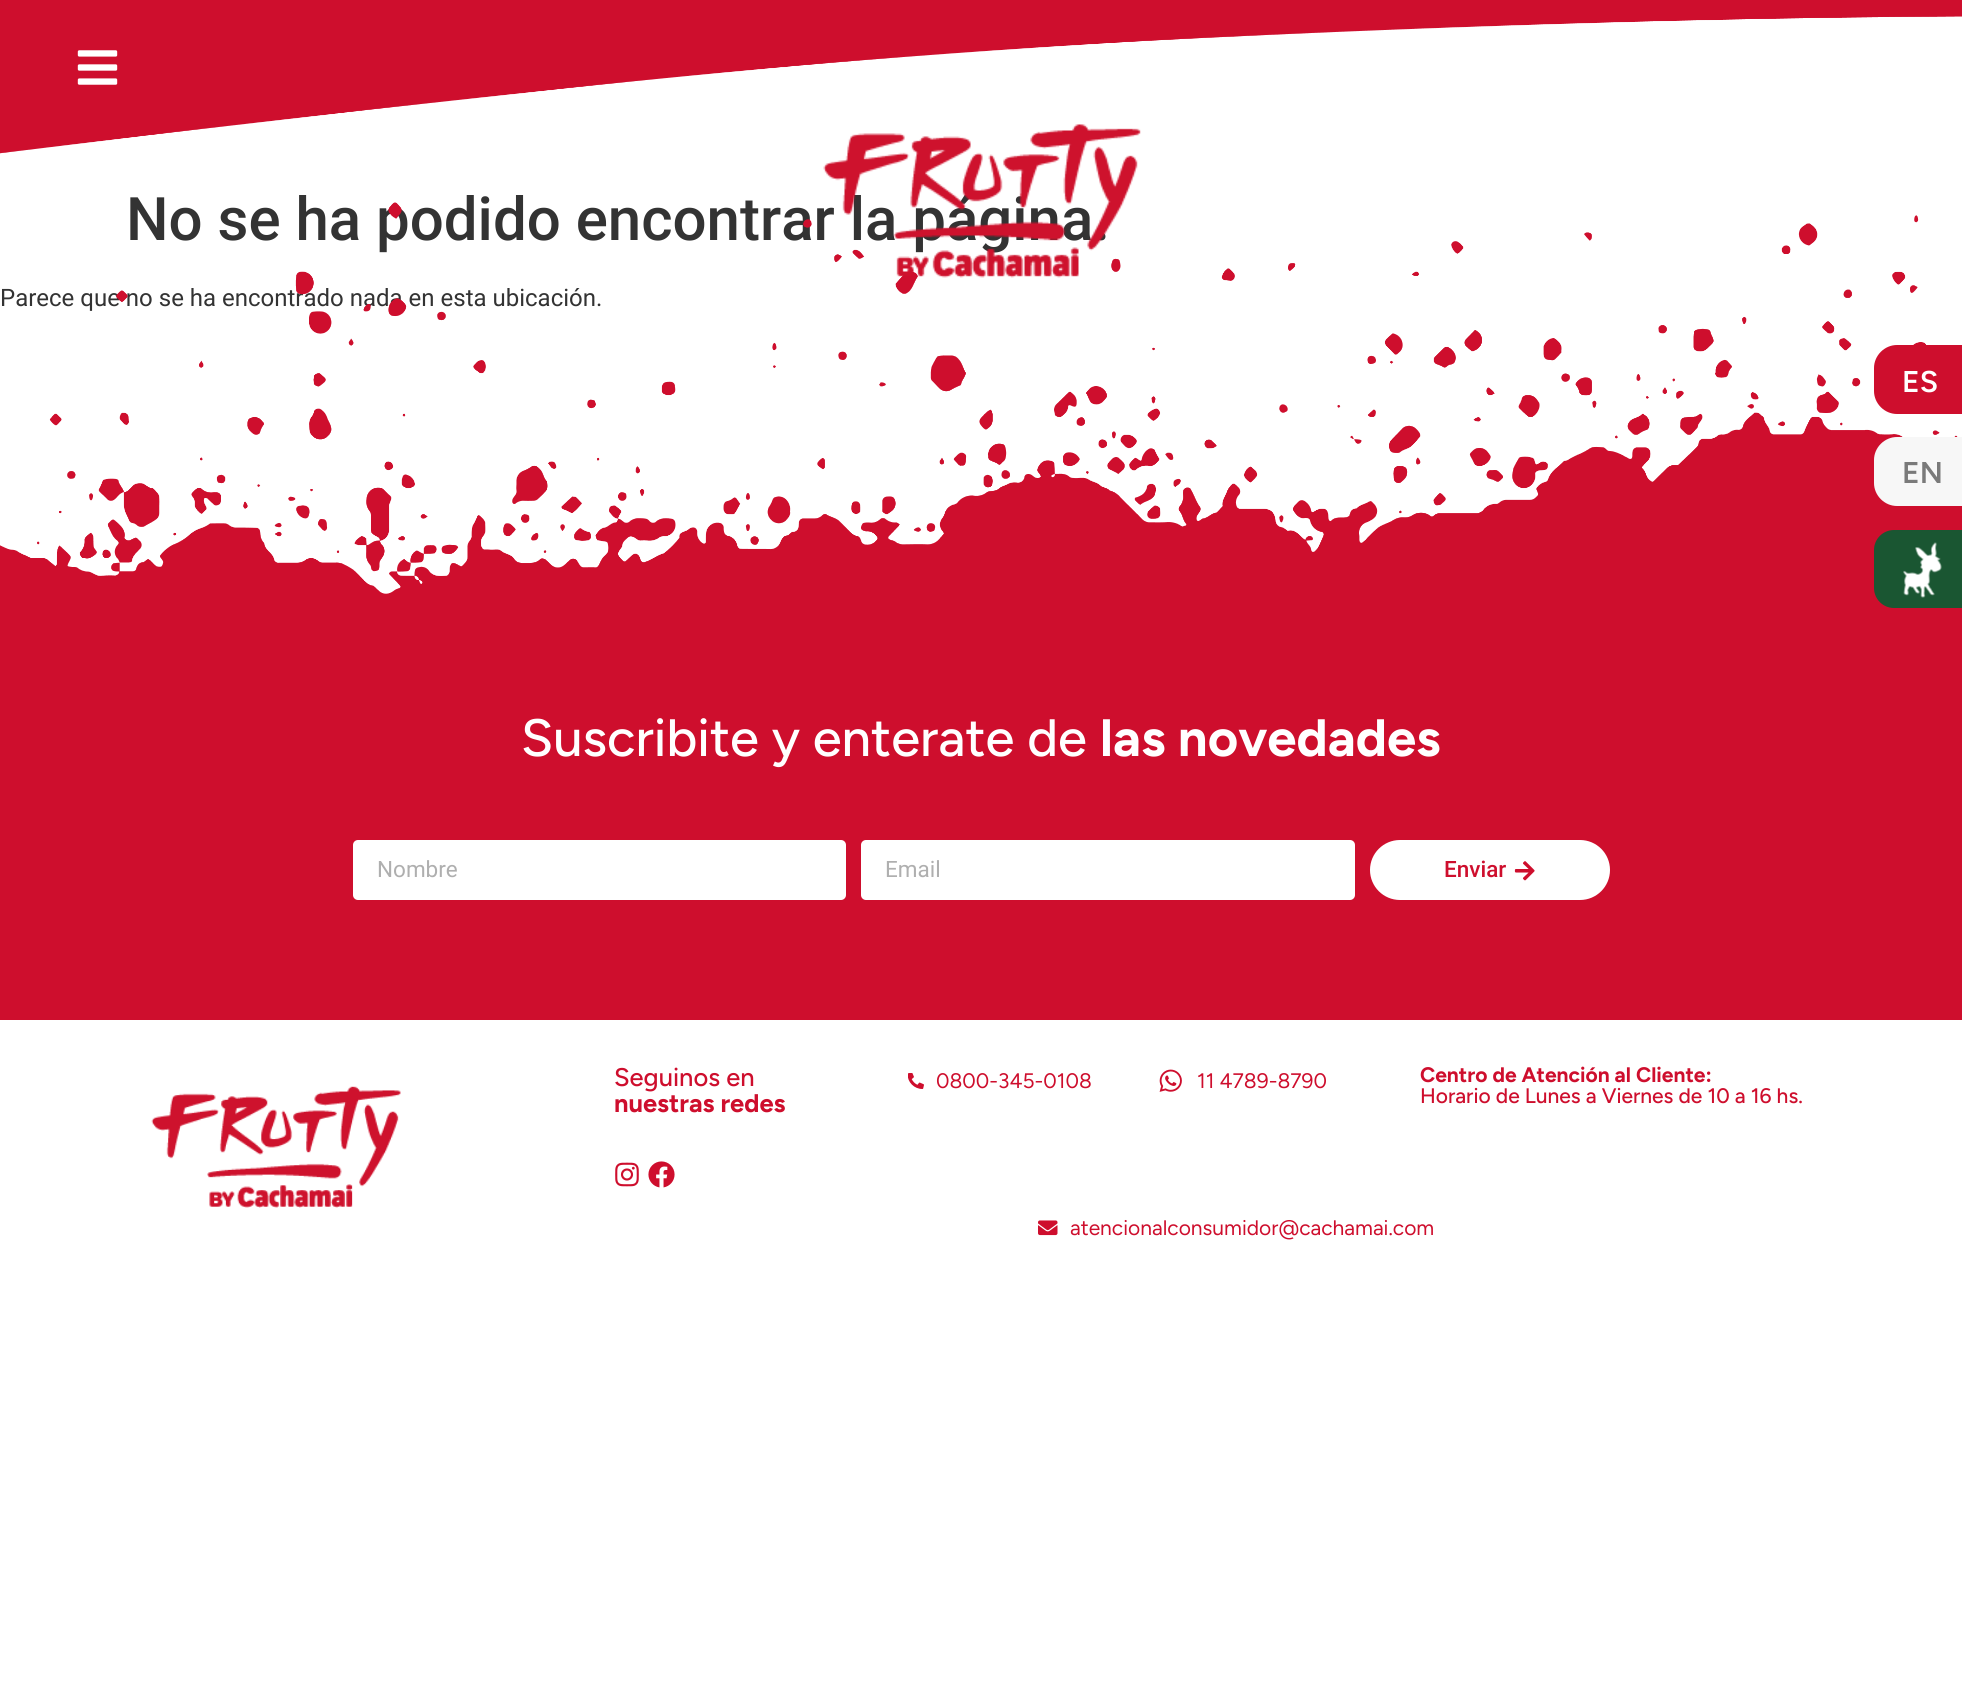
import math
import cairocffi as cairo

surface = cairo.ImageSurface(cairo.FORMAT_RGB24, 1962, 1706)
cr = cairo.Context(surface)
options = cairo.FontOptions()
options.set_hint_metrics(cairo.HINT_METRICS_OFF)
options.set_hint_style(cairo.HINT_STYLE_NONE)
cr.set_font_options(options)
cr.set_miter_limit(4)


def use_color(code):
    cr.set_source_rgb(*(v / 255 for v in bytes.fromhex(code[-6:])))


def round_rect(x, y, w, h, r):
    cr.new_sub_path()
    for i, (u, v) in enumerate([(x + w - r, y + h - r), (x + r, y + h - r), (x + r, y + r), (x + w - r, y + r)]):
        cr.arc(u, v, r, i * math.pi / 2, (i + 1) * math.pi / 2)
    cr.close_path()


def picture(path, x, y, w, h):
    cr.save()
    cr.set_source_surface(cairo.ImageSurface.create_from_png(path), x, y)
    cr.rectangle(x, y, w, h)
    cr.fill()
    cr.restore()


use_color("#ffffff")
cr.paint()
cr.select_font_face("Roboto Medium")
cr.set_font_size(60)
use_color("#333333")
cr.move_to(126, 240)
cr.show_text("No se ha podido encontrar la página.")
cr.select_font_face("Roboto")
cr.set_font_size(24)
cr.move_to(0, 306)
cr.show_text("Parece que no se ha encontrado nada en esta ubicación.")
picture("img1.png", 0, 0, 1962, 154)
picture("img2.png", 77, 50, 41, 35)
picture("img5.png", 0, 202, 1962, 505)
picture("img3.png", 823, 124, 318, 154)
use_color("#ce0e2d")
cr.new_path()
cr.move_to(1897, 345)
cr.line_to(1962, 345)
cr.line_to(1962, 414)
cr.line_to(1897, 414)
cr.curve_to(1884.5, 414, 1874, 403.5, 1874, 391)
cr.line_to(1874, 368)
cr.curve_to(1874, 355.5, 1884.5, 345, 1897, 345)
cr.close_path()
cr.fill()
cr.select_font_face("Figtree SemiBold")
cr.set_font_size(30)
use_color("#ffffff")
cr.move_to(1902, 392)
cr.show_text("ES")
use_color("#f7f7f7")
cr.new_path()
cr.move_to(1897, 437)
cr.line_to(1962, 437)
cr.line_to(1962, 506)
cr.line_to(1897, 506)
cr.curve_to(1884.5, 506, 1874, 495.5, 1874, 483)
cr.line_to(1874, 460)
cr.curve_to(1874, 447.5, 1884.5, 437, 1897, 437)
cr.close_path()
cr.fill()
use_color("#7a7a7a")
cr.move_to(1902, 483)
cr.show_text("EN")
use_color("#1a5632")
round_rect(1874, 530, 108, 78, 20)
cr.fill()
picture("img4.png", 1903, 542, 39, 56)
use_color("#ce0e2d")
cr.rectangle(0, 707, 1962, 313)
cr.fill()
cr.select_font_face("Figtree Medium")
cr.set_font_size(52.5)
use_color("#ffffff")
cr.move_to(521, 756)
cr.show_text("Suscribite y enterate de")
cr.select_font_face("Figtree", cairo.FONT_SLANT_NORMAL, cairo.FONT_WEIGHT_BOLD)
cr.move_to(1100, 756)
cr.show_text("las novedades")
round_rect(353, 840, 493, 60, 5)
cr.fill()
cr.select_font_face("Roboto")
cr.set_font_size(22.5)
use_color("#afafaf")
cr.move_to(377, 877)
cr.show_text("Nombre")
use_color("#ffffff")
round_rect(861, 840, 494, 60, 5)
cr.fill()
use_color("#afafaf")
cr.move_to(885, 877)
cr.show_text("Email")
use_color("#ffffff")
round_rect(1370, 840, 240, 60, 30)
cr.fill()
cr.select_font_face("Roboto Medium")
use_color("#ce0e2d")
cr.move_to(1444, 877)
cr.show_text("Enviar")
picture("img6.png", 1514, 861, 21, 20)
picture("img7.png", 151, 1086, 250, 122)
cr.select_font_face("Figtree Medium")
cr.set_font_size(25.5)
cr.move_to(614, 1086)
cr.show_text("Seguinos en")
cr.select_font_face("Figtree", cairo.FONT_SLANT_NORMAL, cairo.FONT_WEIGHT_BOLD)
cr.move_to(614, 1112)
cr.show_text("nuestras redes")
picture("img8.png", 615, 1162, 24, 25)
picture("img9.png", 648, 1161, 27, 27)
picture("img10.png", 908, 1073, 16, 16)
cr.select_font_face("Figtree")
cr.set_font_size(21)
cr.move_to(936, 1088)
cr.show_text("0800-345-0108")
picture("img11.png", 1159, 1069, 23, 23)
cr.move_to(1197, 1088)
cr.show_text("11 4789-8790")
cr.select_font_face("Figtree", cairo.FONT_SLANT_NORMAL, cairo.FONT_WEIGHT_BOLD)
cr.move_to(1420, 1082)
cr.show_text("Centro de Atención al Cliente:")
cr.select_font_face("Figtree Medium")
cr.move_to(1420, 1103)
cr.show_text("Horario de Lunes a Viernes de 10 a 16 hs.")
picture("img12.png", 1038, 1220, 20, 16)
cr.select_font_face("Figtree")
cr.move_to(1070, 1235)
cr.show_text("atencionalconsumidor@cachamai.com")
surface.write_to_png("result.png")
